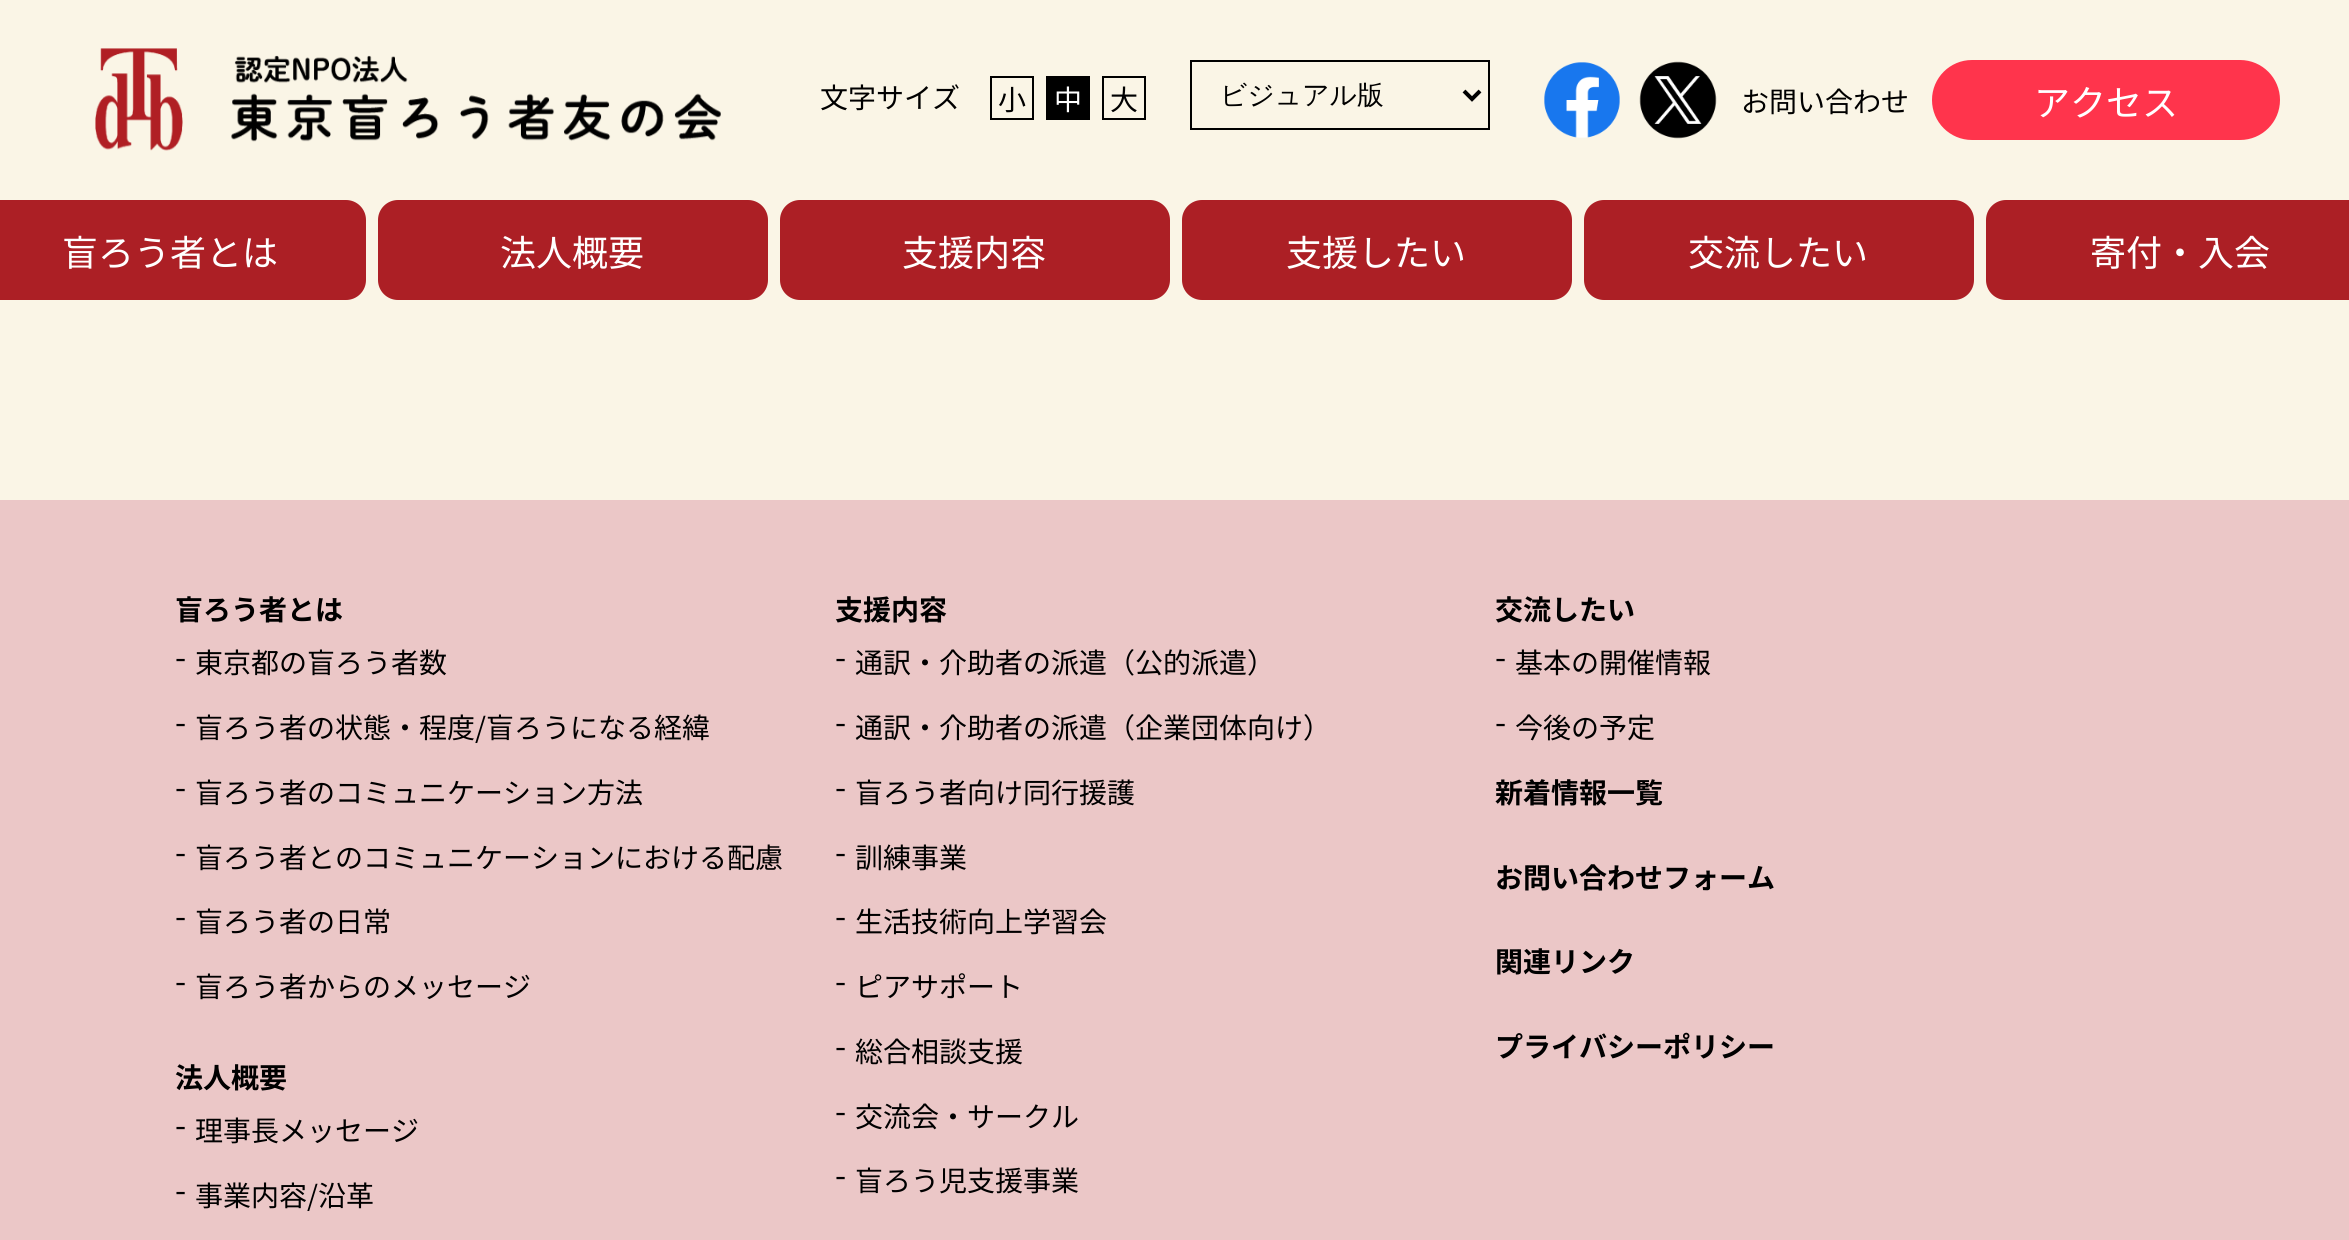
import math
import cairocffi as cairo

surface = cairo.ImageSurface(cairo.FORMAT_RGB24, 2349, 1240)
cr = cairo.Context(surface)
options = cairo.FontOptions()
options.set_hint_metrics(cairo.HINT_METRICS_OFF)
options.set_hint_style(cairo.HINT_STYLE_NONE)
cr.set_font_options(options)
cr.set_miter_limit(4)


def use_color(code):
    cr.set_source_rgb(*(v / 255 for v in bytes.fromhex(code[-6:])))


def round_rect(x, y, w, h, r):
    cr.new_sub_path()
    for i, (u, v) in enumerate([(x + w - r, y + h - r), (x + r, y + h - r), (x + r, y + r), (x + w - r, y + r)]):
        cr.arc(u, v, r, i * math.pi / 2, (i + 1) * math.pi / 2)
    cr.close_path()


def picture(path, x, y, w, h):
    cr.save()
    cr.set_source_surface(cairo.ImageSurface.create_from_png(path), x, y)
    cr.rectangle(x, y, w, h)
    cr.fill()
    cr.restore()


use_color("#faf5e6")
cr.paint()
picture("img1.png", 95, 48, 626, 103)
cr.select_font_face("Noto Sans JP")
cr.set_font_size(28)
use_color("#000000")
cr.move_to(820, 108)
cr.show_text("文字サイズ")
cr.rectangle(991, 77, 42, 42)
cr.stroke()
cr.move_to(998, 110)
cr.show_text("小")
cr.rectangle(1046, 76, 44, 44)
cr.fill()
use_color("#ffffff")
cr.move_to(1054, 110)
cr.show_text("中")
cr.rectangle(1103, 77, 42, 42)
use_color("#000000")
cr.stroke()
cr.move_to(1110, 110)
cr.show_text("大")
cr.rectangle(1191, 61, 298, 68)
cr.stroke()
cr.new_path()
cr.move_to(1464, 91)
cr.line_to(1472, 99)
cr.line_to(1480, 91)
cr.set_line_width(4)
cr.stroke()
cr.select_font_face("WenQuanYi Zen Hei Medium")
cr.set_font_size(26.75)
cr.move_to(1220, 104)
cr.show_text("ビジュアル版")
picture("img2.png", 1544, 62, 76, 76)
picture("img3.png", 1639, 61, 78, 78)
cr.select_font_face("Noto Sans JP")
cr.set_font_size(28)
cr.move_to(1741, 112)
cr.show_text("お問い合わせ")
use_color("#ff344c")
round_rect(1933, 61, 346, 78, 39)
cr.fill_preserve()
cr.set_line_width(2)
cr.stroke()
cr.set_font_size(36)
use_color("#ffffff")
cr.move_to(2034, 116)
cr.show_text("アクセス")
use_color("#ac1f25")
round_rect(-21, 201, 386, 98, 19)
cr.fill_preserve()
cr.stroke()
use_color("#ffffff")
cr.move_to(62, 266)
cr.show_text("盲ろう者とは")
use_color("#ac1f25")
round_rect(379, 201, 388, 98, 19)
cr.fill_preserve()
cr.stroke()
use_color("#ffffff")
cr.move_to(500, 266)
cr.show_text("法人概要")
use_color("#ac1f25")
round_rect(781, 201, 388, 98, 19)
cr.fill_preserve()
cr.stroke()
use_color("#ffffff")
cr.move_to(902, 266)
cr.show_text("支援内容")
use_color("#ac1f25")
round_rect(1183, 201, 388, 98, 19)
cr.fill_preserve()
cr.stroke()
use_color("#ffffff")
cr.move_to(1286, 266)
cr.show_text("支援したい")
use_color("#ac1f25")
round_rect(1585, 201, 388, 98, 19)
cr.fill_preserve()
cr.stroke()
use_color("#ffffff")
cr.move_to(1688, 266)
cr.show_text("交流したい")
use_color("#ac1f25")
round_rect(1987, 201, 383, 98, 19)
cr.fill_preserve()
cr.stroke()
use_color("#ffffff")
cr.move_to(2090, 266)
cr.show_text("寄付・入会")
use_color("#ebc7c7")
cr.rectangle(0, 500, 2349, 740)
cr.fill()
cr.select_font_face("Noto Sans JP", cairo.FONT_SLANT_NORMAL, cairo.FONT_WEIGHT_BOLD)
cr.set_font_size(28)
use_color("#000000")
cr.move_to(175, 620)
cr.show_text("盲ろう者とは")
cr.select_font_face("Noto Sans JP")
cr.set_font_size(32)
cr.move_to(175, 669)
cr.show_text("-")
cr.set_font_size(28)
cr.move_to(195, 673)
cr.show_text("東京都の盲ろう者数")
cr.set_font_size(32)
cr.move_to(175, 734)
cr.show_text("-")
cr.set_font_size(28)
cr.move_to(195, 738)
cr.show_text("盲ろう者の状態・程度/盲ろうになる経緯")
cr.set_font_size(32)
cr.move_to(175, 799)
cr.show_text("-")
cr.set_font_size(28)
cr.move_to(195, 803)
cr.show_text("盲ろう者のコミュニケーション方法")
cr.set_font_size(32)
cr.move_to(175, 864)
cr.show_text("-")
cr.set_font_size(28)
cr.move_to(195, 868)
cr.show_text("盲ろう者とのコミュニケーションにおける配慮")
cr.set_font_size(32)
cr.move_to(175, 928)
cr.show_text("-")
cr.set_font_size(28)
cr.move_to(195, 932)
cr.show_text("盲ろう者の日常")
cr.set_font_size(32)
cr.move_to(175, 993)
cr.show_text("-")
cr.set_font_size(28)
cr.move_to(195, 997)
cr.show_text("盲ろう者からのメッセージ")
cr.select_font_face("Noto Sans JP", cairo.FONT_SLANT_NORMAL, cairo.FONT_WEIGHT_BOLD)
cr.move_to(175, 1088)
cr.show_text("法人概要")
cr.select_font_face("Noto Sans JP")
cr.set_font_size(32)
cr.move_to(175, 1137)
cr.show_text("-")
cr.set_font_size(28)
cr.move_to(195, 1141)
cr.show_text("理事長メッセージ")
cr.set_font_size(32)
cr.move_to(175, 1202)
cr.show_text("-")
cr.set_font_size(28)
cr.move_to(195, 1206)
cr.show_text("事業内容/沿革")
cr.select_font_face("Noto Sans JP", cairo.FONT_SLANT_NORMAL, cairo.FONT_WEIGHT_BOLD)
cr.move_to(835, 620)
cr.show_text("支援内容")
cr.select_font_face("Noto Sans JP")
cr.set_font_size(32)
cr.move_to(835, 669)
cr.show_text("-")
cr.set_font_size(28)
cr.move_to(855, 673)
cr.show_text("通訳・介助者の派遣（公的派遣）")
cr.set_font_size(32)
cr.move_to(835, 734)
cr.show_text("-")
cr.set_font_size(28)
cr.move_to(855, 738)
cr.show_text("通訳・介助者の派遣（企業団体向け）")
cr.set_font_size(32)
cr.move_to(835, 799)
cr.show_text("-")
cr.set_font_size(28)
cr.move_to(855, 803)
cr.show_text("盲ろう者向け同行援護")
cr.set_font_size(32)
cr.move_to(835, 864)
cr.show_text("-")
cr.set_font_size(28)
cr.move_to(855, 868)
cr.show_text("訓練事業")
cr.set_font_size(32)
cr.move_to(835, 928)
cr.show_text("-")
cr.set_font_size(28)
cr.move_to(855, 932)
cr.show_text("生活技術向上学習会")
cr.set_font_size(32)
cr.move_to(835, 993)
cr.show_text("-")
cr.set_font_size(28)
cr.move_to(855, 997)
cr.show_text("ピアサポート")
cr.set_font_size(32)
cr.move_to(835, 1058)
cr.show_text("-")
cr.set_font_size(28)
cr.move_to(855, 1062)
cr.show_text("総合相談支援")
cr.set_font_size(32)
cr.move_to(835, 1123)
cr.show_text("-")
cr.set_font_size(28)
cr.move_to(855, 1127)
cr.show_text("交流会・サークル")
cr.set_font_size(32)
cr.move_to(835, 1187)
cr.show_text("-")
cr.set_font_size(28)
cr.move_to(855, 1191)
cr.show_text("盲ろう児支援事業")
cr.select_font_face("Noto Sans JP", cairo.FONT_SLANT_NORMAL, cairo.FONT_WEIGHT_BOLD)
cr.move_to(1495, 620)
cr.show_text("交流したい")
cr.select_font_face("Noto Sans JP")
cr.set_font_size(32)
cr.move_to(1495, 669)
cr.show_text("-")
cr.set_font_size(28)
cr.move_to(1515, 673)
cr.show_text("基本の開催情報")
cr.set_font_size(32)
cr.move_to(1495, 734)
cr.show_text("-")
cr.set_font_size(28)
cr.move_to(1515, 738)
cr.show_text("今後の予定")
cr.select_font_face("Noto Sans JP", cairo.FONT_SLANT_NORMAL, cairo.FONT_WEIGHT_BOLD)
cr.move_to(1495, 803)
cr.show_text("新着情報一覧")
cr.move_to(1495, 888)
cr.show_text("お問い合わせフォーム")
cr.move_to(1495, 972)
cr.show_text("関連リンク")
cr.move_to(1495, 1057)
cr.show_text("プライバシーポリシー")
surface.write_to_png("result.png")
